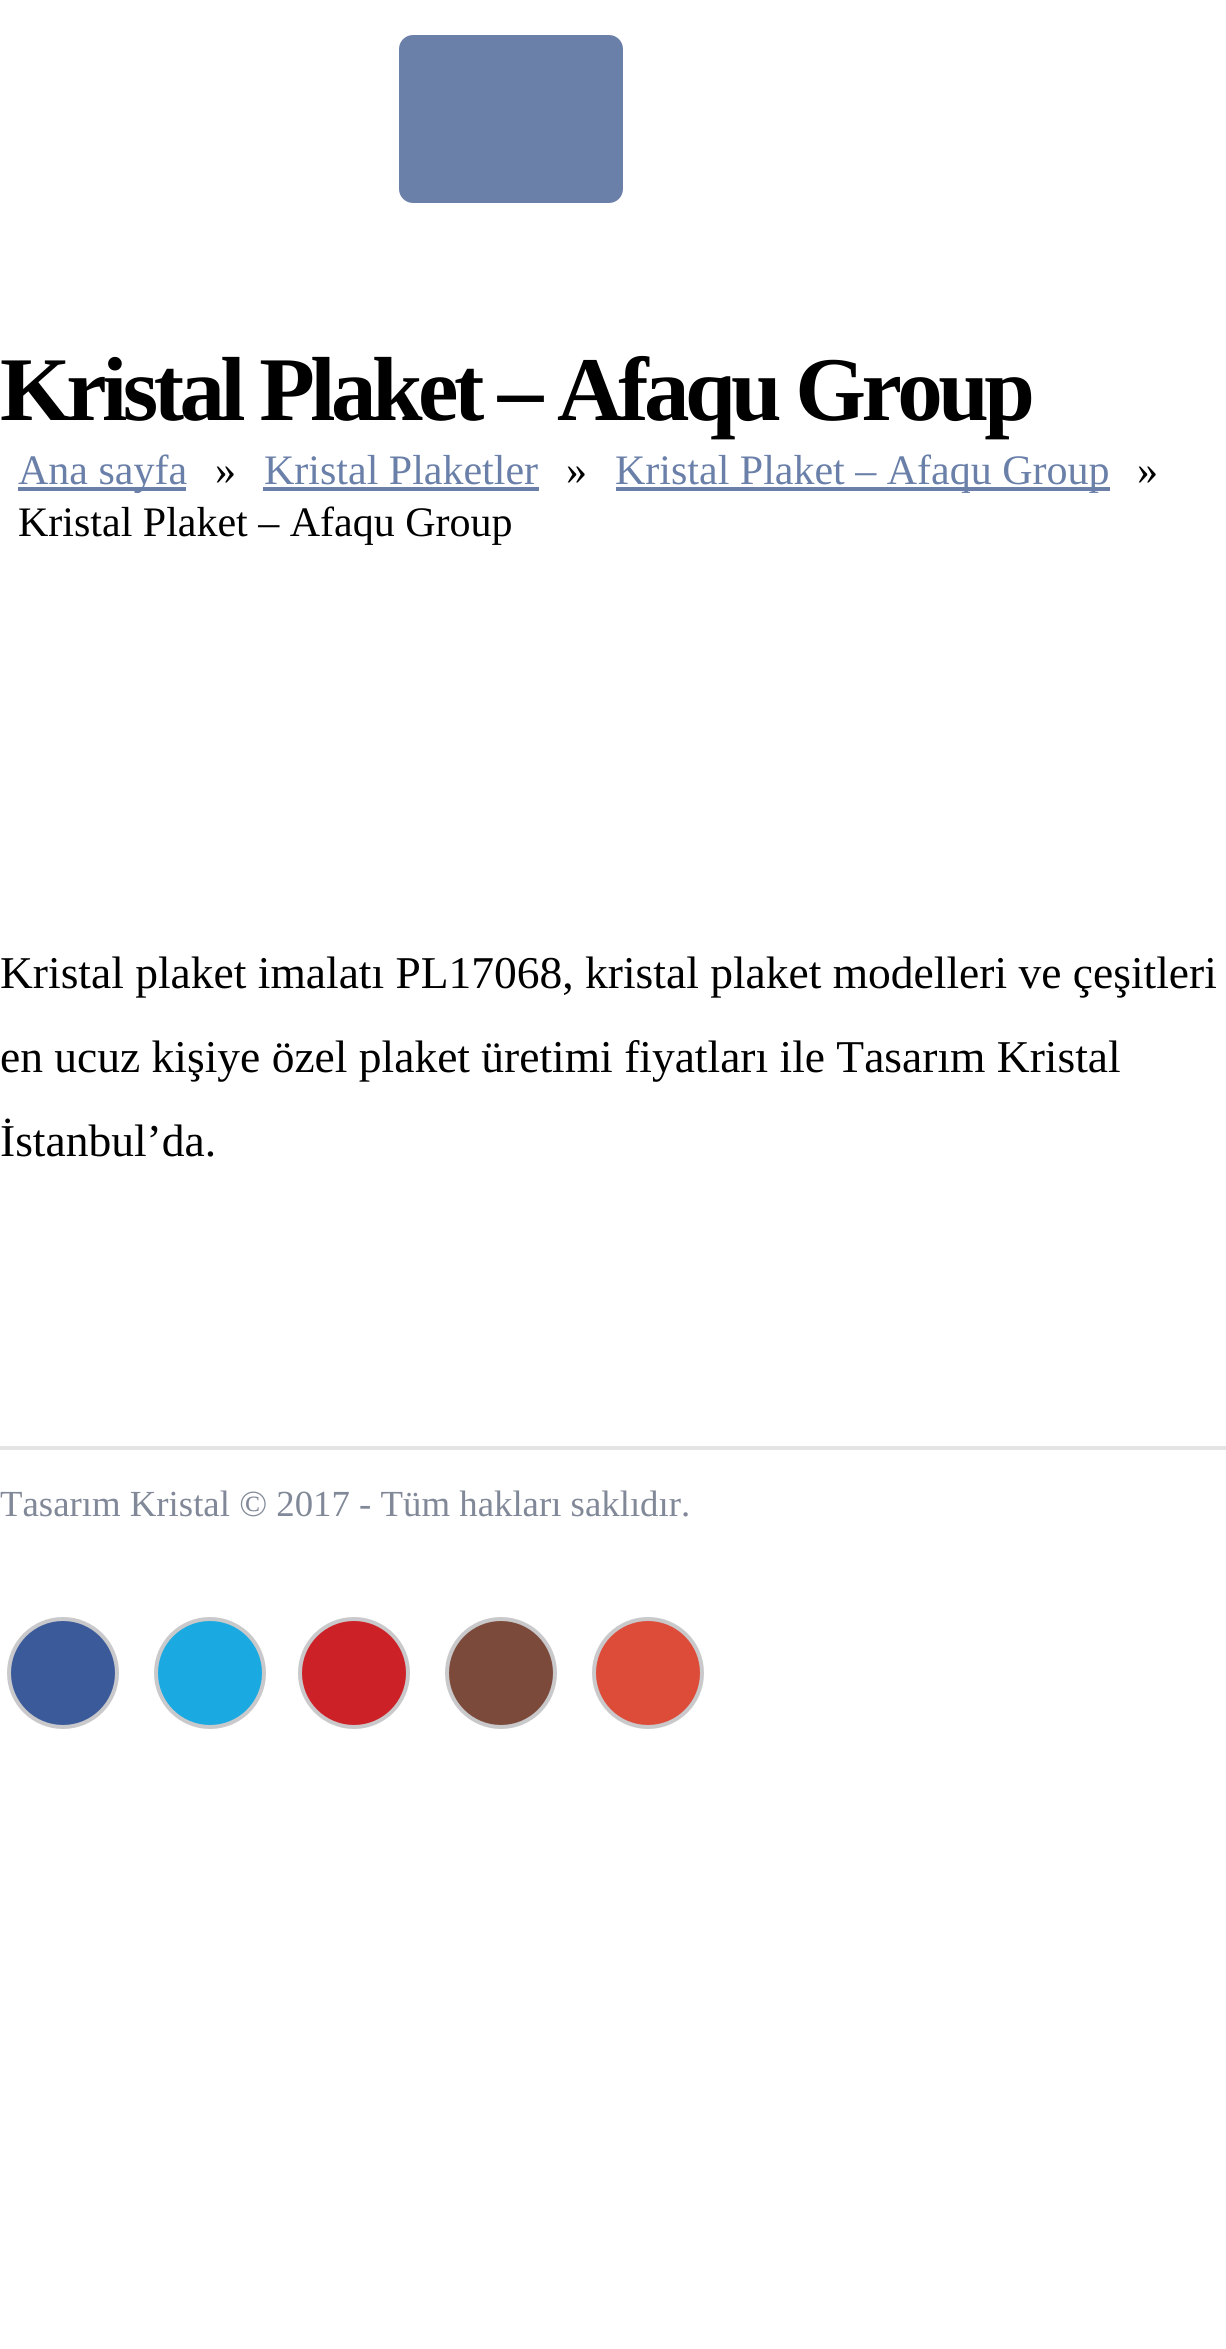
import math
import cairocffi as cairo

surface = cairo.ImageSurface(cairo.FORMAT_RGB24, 1226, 2349)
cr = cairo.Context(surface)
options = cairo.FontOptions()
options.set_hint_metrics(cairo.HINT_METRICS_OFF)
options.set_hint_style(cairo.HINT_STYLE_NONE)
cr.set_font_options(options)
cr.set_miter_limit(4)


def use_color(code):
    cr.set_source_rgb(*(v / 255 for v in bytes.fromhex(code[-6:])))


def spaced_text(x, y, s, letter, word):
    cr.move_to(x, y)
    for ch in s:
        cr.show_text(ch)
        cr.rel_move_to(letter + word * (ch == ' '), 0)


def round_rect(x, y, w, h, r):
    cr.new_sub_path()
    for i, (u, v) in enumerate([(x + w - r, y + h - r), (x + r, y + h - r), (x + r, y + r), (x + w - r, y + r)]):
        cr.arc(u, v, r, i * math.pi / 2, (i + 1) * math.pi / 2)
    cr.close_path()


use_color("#ffffff")
cr.paint()
use_color("#6a80a9")
round_rect(399, 35, 224, 168, 14)
cr.fill()
cr.select_font_face("Liberation Serif", cairo.FONT_SLANT_NORMAL, cairo.FONT_WEIGHT_BOLD)
cr.set_font_size(91)
use_color("#000000")
spaced_text(0, 420, "Kristal Plaket – Afaqu Group", -4.55, 0)
use_color("#6a80a9")
cr.rectangle(18, 487, 168, 4)
cr.fill()
cr.select_font_face("Liberation Serif")
cr.set_font_size(42)
cr.move_to(18, 484)
cr.show_text("Ana sayfa")
use_color("#000000")
cr.move_to(215, 484)
cr.show_text("»")
use_color("#6a80a9")
cr.move_to(264, 484)
cr.show_text("Kristal Plaketler")
cr.rectangle(263, 487, 276, 4)
cr.fill()
use_color("#000000")
cr.move_to(566, 484)
cr.show_text("»")
use_color("#6a80a9")
cr.rectangle(616, 487, 494, 4)
cr.fill()
cr.move_to(615, 484)
cr.show_text("Kristal Plaket – Afaqu Group")
use_color("#000000")
cr.move_to(1137, 484)
cr.show_text("»")
cr.move_to(18, 536)
cr.show_text("Kristal Plaket – Afaqu Group")
cr.set_font_size(45.5)
cr.move_to(0, 988)
cr.show_text("Kristal plaket imalatı PL17068, kristal plaket modelleri ve çeşitleri")
cr.move_to(0, 1072)
cr.show_text("en ucuz kişiye özel plaket üretimi fiyatları ile Tasarım Kristal")
cr.move_to(0, 1156)
cr.show_text("İstanbul’da.")
use_color("#e4e4e4")
cr.rectangle(0, 1446, 1226, 4)
cr.fill()
cr.set_font_size(36.8)
use_color("#818898")
cr.move_to(0, 1516)
cr.show_text("Tasarım Kristal © 2017 - Tüm hakları saklıdır.")
use_color("#3b5a9a")
cr.new_path()
cr.arc(63, 1673, 54, 0, 2 * math.pi)
cr.fill_preserve()
use_color("#c9c9cc")
cr.set_line_width(4)
cr.stroke()
use_color("#1aa9e1")
cr.arc(210, 1673, 54, 0, 2 * math.pi)
cr.fill_preserve()
use_color("#c9c9cc")
cr.stroke()
use_color("#cc2127")
cr.arc(354, 1673, 54, 0, 2 * math.pi)
cr.fill_preserve()
use_color("#c9c9cc")
cr.stroke()
use_color("#7c4a3a")
cr.arc(501, 1673, 54, 0, 2 * math.pi)
cr.fill_preserve()
use_color("#c9c9cc")
cr.stroke()
use_color("#dd4b39")
cr.arc(648, 1673, 54, 0, 2 * math.pi)
cr.fill_preserve()
use_color("#c9c9cc")
cr.stroke()
surface.write_to_png("result.png")
